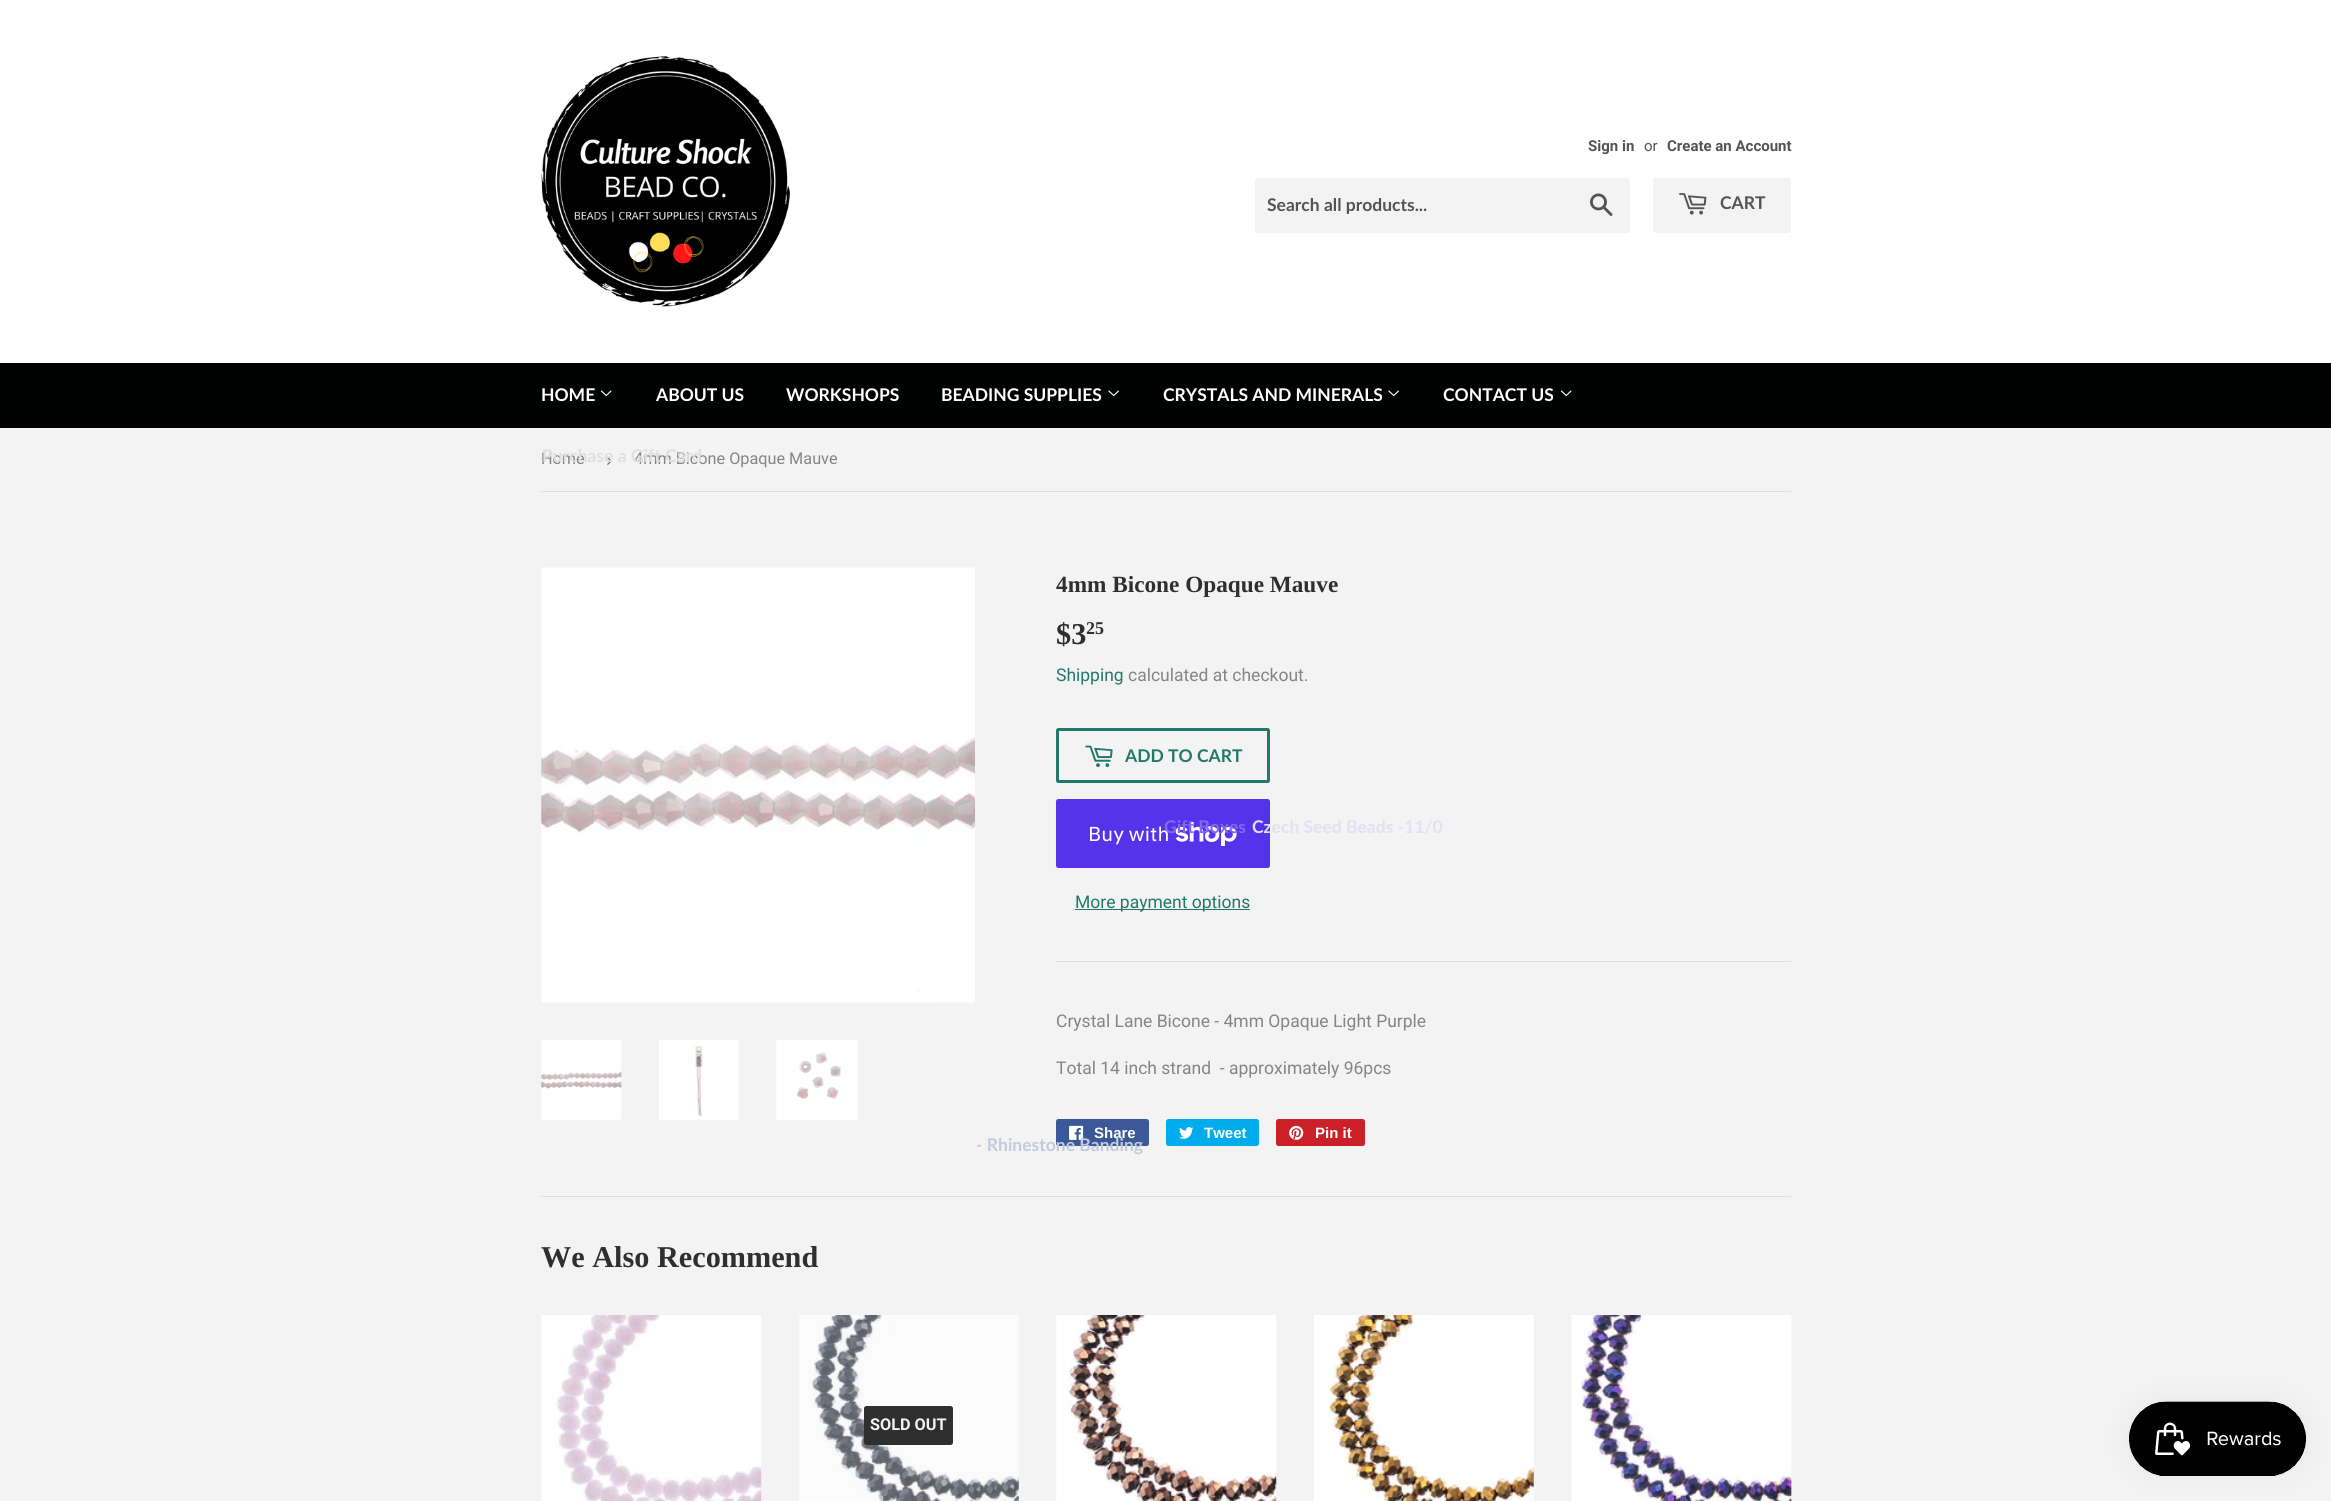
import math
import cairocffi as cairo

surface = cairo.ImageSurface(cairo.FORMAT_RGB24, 2331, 1501)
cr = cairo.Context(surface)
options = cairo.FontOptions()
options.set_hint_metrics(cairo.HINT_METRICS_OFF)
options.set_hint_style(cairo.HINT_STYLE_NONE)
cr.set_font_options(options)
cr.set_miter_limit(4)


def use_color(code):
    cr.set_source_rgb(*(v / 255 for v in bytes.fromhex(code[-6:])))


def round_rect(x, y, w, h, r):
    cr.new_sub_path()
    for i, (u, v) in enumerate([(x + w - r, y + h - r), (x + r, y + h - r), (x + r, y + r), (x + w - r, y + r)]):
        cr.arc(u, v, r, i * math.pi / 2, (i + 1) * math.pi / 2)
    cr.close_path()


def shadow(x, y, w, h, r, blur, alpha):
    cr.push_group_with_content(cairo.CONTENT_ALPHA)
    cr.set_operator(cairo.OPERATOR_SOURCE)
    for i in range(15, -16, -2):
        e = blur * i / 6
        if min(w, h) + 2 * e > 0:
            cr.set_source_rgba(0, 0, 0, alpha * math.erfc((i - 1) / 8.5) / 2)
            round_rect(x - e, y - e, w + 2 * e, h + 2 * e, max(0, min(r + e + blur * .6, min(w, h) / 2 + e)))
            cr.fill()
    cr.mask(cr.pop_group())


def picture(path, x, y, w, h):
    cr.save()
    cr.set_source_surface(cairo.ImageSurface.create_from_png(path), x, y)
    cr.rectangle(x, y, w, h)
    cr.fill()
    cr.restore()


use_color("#f3f3f3")
cr.paint()
use_color("#ffffff")
cr.rectangle(0, 0, 2331, 363)
cr.fill()
picture("img1.png", 541, 56, 249, 251)
cr.select_font_face("Roboto", cairo.FONT_SLANT_NORMAL, cairo.FONT_WEIGHT_BOLD)
cr.set_font_size(15)
use_color("#545454")
cr.move_to(1588, 151)
cr.show_text("Sign in")
cr.select_font_face("Roboto")
cr.move_to(1644, 151)
cr.show_text("or")
cr.select_font_face("Roboto", cairo.FONT_SLANT_NORMAL, cairo.FONT_WEIGHT_BOLD)
cr.move_to(1667, 151)
cr.show_text("Create an Account")
use_color("#f3f3f3")
round_rect(1255, 178, 375, 55, 2.5)
cr.fill()
cr.select_font_face("Lato", cairo.FONT_SLANT_NORMAL, cairo.FONT_WEIGHT_BOLD)
cr.set_font_size(17.5)
use_color("#545454")
cr.move_to(1267, 211)
cr.show_text("Search all products...")
picture("img2.png", 1590, 193, 23, 23)
use_color("#f3f3f3")
round_rect(1653, 178, 138, 55, 2.5)
cr.fill()
picture("img3.png", 1679, 193, 28, 22)
use_color("#545454")
cr.move_to(1720, 209)
cr.show_text("CART")
use_color("#000302")
cr.rectangle(0, 363, 2331, 65)
cr.fill()
use_color("#ffffff")
cr.move_to(541, 401)
cr.show_text("HOME")
picture("img4.png", 600, 390, 12, 7)
cr.select_font_face("Roboto")
cr.set_font_size(16.25)
use_color("#858585")
cr.move_to(541, 464)
cr.show_text("Home")
cr.select_font_face("Liberation Sans")
cr.set_font_size(19)
use_color("#767676")
cr.move_to(606, 466)
cr.show_text("›")
cr.select_font_face("Roboto")
cr.set_font_size(16.25)
use_color("#858585")
cr.move_to(634, 464)
cr.show_text("4mm Bicone Opaque Mauve")
cr.select_font_face("Lato", cairo.FONT_SLANT_NORMAL, cairo.FONT_WEIGHT_BOLD)
cr.set_font_size(17.5)
use_color("#dfdfdf")
cr.move_to(542, 462)
cr.show_text("Purchase a Gift Card")
use_color("#ffffff")
cr.move_to(656, 401)
cr.show_text("ABOUT US")
cr.move_to(786, 401)
cr.show_text("WORKSHOPS")
cr.move_to(941, 401)
cr.show_text("BEADING SUPPLIES")
picture("img5.png", 1108, 390, 11, 7)
use_color("#5433eb")
round_rect(1056, 799, 214, 69, 2.5)
cr.fill()
use_color("#e3e0f2")
cr.move_to(1252, 833)
cr.show_text("Czech Seed Beads -11/0")
use_color("#3b5998")
round_rect(1056, 1119, 93, 27, 2.5)
cr.fill()
picture("img12.png", 1069, 1125, 15, 15)
use_color("#c2cadb")
cr.move_to(976, 1151)
cr.show_text("- Rhinestone Banding")
use_color("#ffffff")
cr.move_to(1163, 401)
cr.show_text("CRYSTALS AND MINERALS")
picture("img5.png", 1388, 390, 11, 7)
cr.select_font_face("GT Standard")
cr.set_font_size(20)
cr.move_to(1088, 841)
cr.show_text("Buy with")
picture("img11.png", 1175, 821, 62, 25)
cr.select_font_face("Lato", cairo.FONT_SLANT_NORMAL, cairo.FONT_WEIGHT_BOLD)
cr.set_font_size(17.5)
use_color("#826af0")
cr.move_to(1164, 833)
cr.show_text("Gift Boxes")
use_color("#ffffff")
cr.move_to(1443, 401)
cr.show_text("CONTACT US")
picture("img4.png", 1560, 390, 12, 7)
use_color("#dedede")
cr.rectangle(541, 491, 1250, 1)
cr.fill()
picture("img6.png", 541, 567, 434, 436)
picture("img7.png", 541, 1040, 81, 80)
picture("img8.png", 659, 1040, 80, 80)
picture("img9.png", 776, 1040, 82, 80)
cr.select_font_face("Liberation Serif", cairo.FONT_SLANT_NORMAL, cairo.FONT_WEIGHT_BOLD)
cr.set_font_size(23.25)
use_color("#2f2f2f")
cr.move_to(1056, 592)
cr.show_text("4mm Bicone Opaque Mauve")
cr.set_font_size(30.25)
cr.move_to(1056, 644)
cr.show_text("$3")
cr.set_font_size(18)
cr.move_to(1086, 634)
cr.show_text("25")
cr.select_font_face("Roboto")
cr.set_font_size(17.5)
use_color("#237969")
cr.move_to(1056, 681)
cr.show_text("Shipping")
use_color("#858585")
cr.move_to(1128, 681)
cr.show_text("calculated at checkout.")
round_rect(1057.5, 729.5, 211, 52, 1)
use_color("#237969")
cr.set_line_width(3)
cr.stroke()
picture("img10.png", 1085, 745, 28, 23)
cr.select_font_face("Lato", cairo.FONT_SLANT_NORMAL, cairo.FONT_WEIGHT_BOLD)
cr.move_to(1125, 762)
cr.show_text("ADD TO CART")
cr.rectangle(1075, 909, 175, 1)
cr.fill()
cr.select_font_face("Roboto")
cr.move_to(1075, 908)
cr.show_text("More payment options")
use_color("#dedede")
cr.rectangle(1056, 961, 735, 1)
cr.fill()
use_color("#858585")
cr.move_to(1056, 1027)
cr.show_text("Crystal Lane Bicone - 4mm Opaque Light Purple")
cr.move_to(1056, 1074)
cr.show_text("Total 14 inch strand  - approximately 96pcs")
cr.select_font_face("Liberation Sans", cairo.FONT_SLANT_NORMAL, cairo.FONT_WEIGHT_BOLD)
cr.set_font_size(15)
use_color("#ffffff")
cr.move_to(1094, 1138)
cr.show_text("Share")
use_color("#00aced")
round_rect(1166, 1119, 93, 27, 2.5)
cr.fill()
picture("img13.png", 1179, 1127, 15, 12)
use_color("#ffffff")
cr.move_to(1204, 1138)
cr.show_text("Tweet")
use_color("#cb2027")
round_rect(1276, 1119, 89, 27, 2.5)
cr.fill()
picture("img14.png", 1289, 1125, 15, 15)
use_color("#ffffff")
cr.move_to(1315, 1138)
cr.show_text("Pin it")
use_color("#dedede")
cr.rectangle(541, 1196, 1250, 1)
cr.fill()
cr.select_font_face("Liberation Serif", cairo.FONT_SLANT_NORMAL, cairo.FONT_WEIGHT_BOLD)
cr.set_font_size(30.25)
use_color("#2f2f2f")
cr.move_to(541, 1267)
cr.show_text("We Also Recommend")
picture("img15.png", 541, 1315, 221, 186)
picture("img16.png", 799, 1315, 220, 186)
round_rect(864, 1406, 89, 39, 2.5)
cr.fill()
cr.select_font_face("Roboto", cairo.FONT_SLANT_NORMAL, cairo.FONT_WEIGHT_BOLD)
cr.set_font_size(16.25)
use_color("#f3f3f3")
cr.move_to(870, 1430)
cr.show_text("SOLD OUT")
picture("img17.png", 1056, 1315, 221, 186)
picture("img18.png", 1314, 1315, 220, 186)
picture("img19.png", 1571, 1315, 221, 186)
use_color("#000000")
shadow(2129, 1401, 177, 75, 37.5, 15.5, 0.05)
picture("img20.png", 2129, 1401, 177, 75)
surface.write_to_png("result.png")
